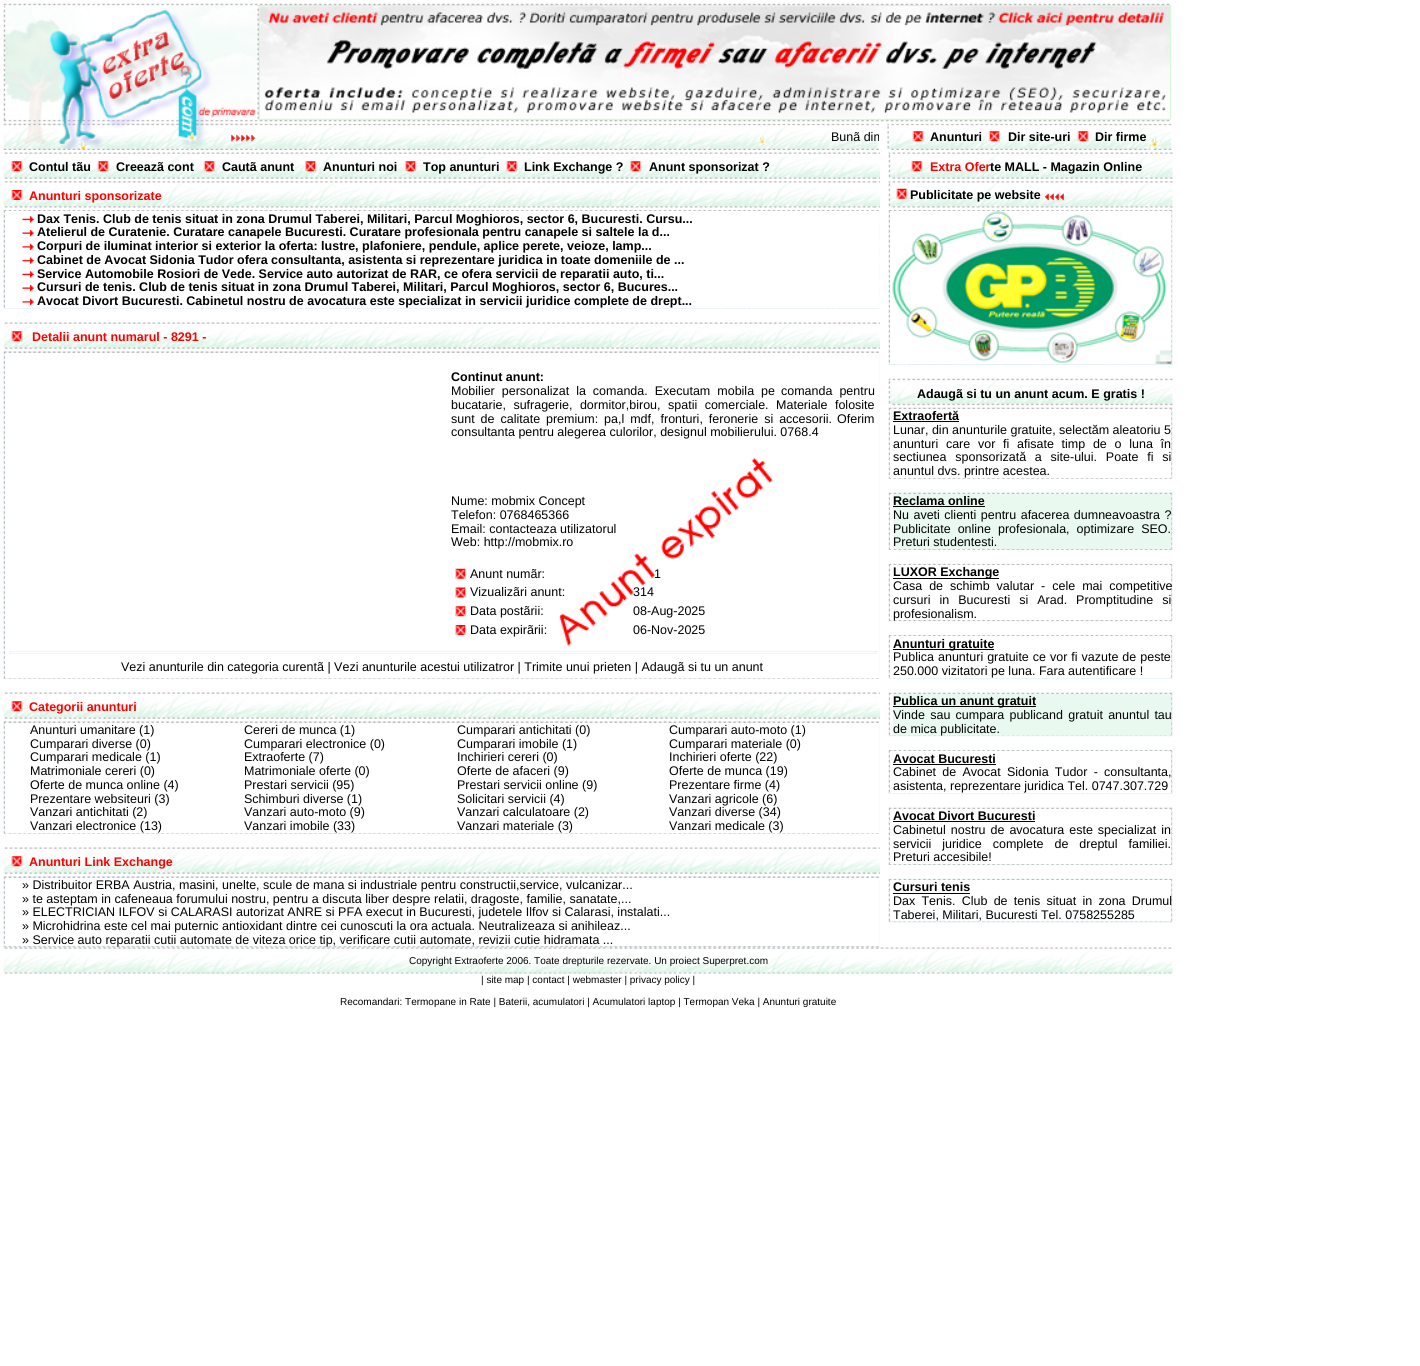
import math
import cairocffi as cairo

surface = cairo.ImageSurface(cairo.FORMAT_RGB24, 1420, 1366)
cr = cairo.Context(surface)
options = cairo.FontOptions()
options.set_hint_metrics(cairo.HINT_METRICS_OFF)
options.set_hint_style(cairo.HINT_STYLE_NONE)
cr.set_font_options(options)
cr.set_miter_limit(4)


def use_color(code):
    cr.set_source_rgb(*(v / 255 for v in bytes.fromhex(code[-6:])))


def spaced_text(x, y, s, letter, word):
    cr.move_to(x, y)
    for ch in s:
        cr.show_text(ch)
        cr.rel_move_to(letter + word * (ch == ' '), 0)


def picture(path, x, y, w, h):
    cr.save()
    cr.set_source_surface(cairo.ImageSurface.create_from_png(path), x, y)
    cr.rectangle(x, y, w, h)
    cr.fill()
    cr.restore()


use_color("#ffffff")
cr.paint()
picture("img1.png", 3, 3, 255, 147)
picture("img2.png", 257, 3, 915, 4)
picture("img3.png", 257, 6, 3, 113)
picture("img4.png", 260, 6, 910, 112)
picture("img5.png", 1170, 6, 2, 113)
picture("img7.png", 257, 123, 622, 27)
picture("img8.png", 887, 123, 285, 27)
picture("img6.png", 257, 118, 915, 6)
cr.save()
cr.rectangle(258, 130, 621, 14)
cr.clip()
cr.select_font_face("Liberation Sans")
cr.set_font_size(12.5)
use_color("#000000")
cr.move_to(831, 141)
cr.show_text("Bunã dim")
cr.restore()
picture("img9.png", 912, 131, 12, 11)
cr.select_font_face("Liberation Sans", cairo.FONT_SLANT_NORMAL, cairo.FONT_WEIGHT_BOLD)
cr.set_font_size(12.5)
use_color("#000000")
cr.move_to(930, 141)
cr.show_text("Anunturi")
picture("img10.png", 988, 131, 12, 11)
cr.move_to(1008, 141)
cr.show_text("Dir site-uri")
picture("img11.png", 1077, 131, 12, 11)
cr.move_to(1095, 141)
cr.show_text("Dir firme")
picture("img12.png", 3, 152, 877, 27)
picture("img13.png", 11, 161, 12, 11)
cr.move_to(29, 171)
cr.show_text("Contul tãu")
picture("img14.png", 97, 161, 12, 11)
cr.move_to(116, 171)
cr.show_text("Creeazã cont")
picture("img15.png", 203, 161, 12, 11)
cr.move_to(222, 171)
cr.show_text("Cautã anunt")
picture("img16.png", 305, 161, 12, 11)
cr.move_to(323, 171)
cr.show_text("Anunturi noi")
picture("img17.png", 405, 161, 12, 11)
cr.move_to(423, 171)
cr.show_text("Top anunturi")
picture("img18.png", 506, 161, 12, 11)
cr.move_to(524, 171)
cr.show_text("Link Exchange ?")
picture("img19.png", 630, 161, 12, 11)
cr.move_to(649, 171)
cr.show_text("Anunt sponsorizat ?")
picture("img20.png", 3, 181, 877, 27)
picture("img21.png", 11, 190, 12, 10)
use_color("#ff0000")
cr.move_to(29, 200)
cr.show_text("Anunturi sponsorizate")
picture("img22.png", 3, 210, 877, 99)
use_color("#ffffff")
cr.rectangle(5, 211, 874, 97)
cr.fill()
picture("img23.png", 22, 216, 12, 7)
use_color("#000000")
cr.move_to(37, 223)
cr.show_text("Dax Tenis. Club de tenis situat in zona Drumul Taberei, Militari, Parcul Moghioros, sector 6, Bucuresti. Cursu...")
picture("img24.png", 22, 230, 12, 7)
cr.move_to(37, 236)
cr.show_text("Atelierul de Curatenie. Curatare canapele Bucuresti. Curatare profesionala pentru canapele si saltele la d...")
picture("img25.png", 22, 243, 12, 7)
cr.move_to(37, 250)
cr.show_text("Corpuri de iluminat interior si exterior la oferta: lustre, plafoniere, pendule, aplice perete, veioze, lamp...")
picture("img26.png", 22, 257, 12, 7)
cr.move_to(37, 264)
cr.show_text("Cabinet de Avocat Sidonia Tudor ofera consultanta, asistenta si reprezentare juridica in toate domeniile de ...")
picture("img23.png", 22, 271, 12, 7)
cr.move_to(37, 278)
cr.show_text("Service Automobile Rosiori de Vede. Service auto autorizat de RAR, ce ofera servicii de reparatii auto, ti...")
picture("img24.png", 22, 285, 12, 7)
cr.move_to(37, 291)
cr.show_text("Cursuri de tenis. Club de tenis situat in zona Drumul Taberei, Militari, Parcul Moghioros, sector 6, Bucures...")
picture("img25.png", 22, 298, 12, 7)
cr.move_to(37, 305)
cr.show_text("Avocat Divort Bucuresti. Cabinetul nostru de avocatura este specializat in servicii juridice complete de drept...")
picture("img12.png", 3, 322, 877, 27)
picture("img13.png", 11, 331, 12, 11)
use_color("#ff0000")
cr.move_to(32, 341)
cr.show_text("Detalii anunt numarul - 8291 -")
picture("img27.png", 3, 351, 877, 328)
use_color("#ffffff")
cr.rectangle(5, 353, 874, 325)
cr.fill()
use_color("#000000")
cr.move_to(451, 381)
cr.show_text("Continut anunt:")
cr.select_font_face("Liberation Sans")
spaced_text(451, 395, "Mobilier personalizat la comanda. Executam mobila pe", 0, 3.5)
spaced_text(781, 395, "comanda pentru", 0, 3.5)
spaced_text(451, 409, "bucatarie, sufragerie, dormitor,birou,", 0, 4)
spaced_text(668, 409, "spatii comerciale. Materiale folosite", 0, 4)
spaced_text(451, 423, "sunt de calitate", 0, 2.5)
spaced_text(546, 423, "premium: pa,l mdf, fronturi, feronerie si accesorii.", 0, 2.5)
cr.move_to(837, 423)
cr.show_text("Oferim")
cr.move_to(451, 436)
cr.show_text("consultanta pentru alegerea culorilor, designul mobilierului. 0768.4")
cr.move_to(451, 505)
cr.show_text("Nume: mobmix Concept")
cr.move_to(451, 519)
cr.show_text("Telefon: 0768465366")
cr.move_to(451, 533)
cr.show_text("Email: contacteaza utilizatorul")
cr.move_to(451, 546)
cr.show_text("Web: http://mobmix.ro")
picture("img28.png", 455, 568, 12, 11)
cr.move_to(470, 578)
cr.show_text("Anunt numãr:")
cr.move_to(654, 578)
cr.show_text("1")
picture("img29.png", 455, 587, 12, 11)
cr.move_to(470, 596)
cr.show_text("Vizualizãri anunt:")
cr.move_to(633, 596)
cr.show_text("314")
picture("img30.png", 455, 606, 12, 11)
cr.move_to(470, 615)
cr.show_text("Data postãrii:")
cr.move_to(633, 615)
cr.show_text("08-Aug-2025")
picture("img31.png", 455, 625, 12, 10)
cr.move_to(470, 634)
cr.show_text("Data expirãrii:")
cr.move_to(633, 634)
cr.show_text("06-Nov-2025")
use_color("#e9f9f0")
cr.rectangle(10, 653, 866, 1)
cr.fill()
cr.rectangle(9, 651, 869, 1)
cr.fill()
cr.rectangle(876, 651, 1, 3)
cr.fill()
cr.rectangle(9, 651, 1, 3)
cr.fill()
use_color("#000000")
cr.move_to(121, 671)
cr.show_text("Vezi anunturile din categoria curentã | Vezi anunturile acestui utilizatror | Trimite unui prieten | Adaugã si tu un anunt")
picture("img12.png", 3, 692, 877, 27)
picture("img13.png", 11, 701, 12, 11)
cr.select_font_face("Liberation Sans", cairo.FONT_SLANT_NORMAL, cairo.FONT_WEIGHT_BOLD)
use_color("#ff0000")
cr.move_to(29, 711)
cr.show_text("Categorii anunturi")
picture("img32.png", 3, 721, 877, 113)
use_color("#ffffff")
cr.rectangle(5, 723, 874, 110)
cr.fill()
cr.select_font_face("Liberation Sans")
use_color("#000000")
cr.move_to(30, 734)
cr.show_text("Anunturi umanitare (1)")
cr.move_to(244, 734)
cr.show_text("Cereri de munca (1)")
cr.move_to(457, 734)
cr.show_text("Cumparari antichitati (0)")
cr.move_to(669, 734)
cr.show_text("Cumparari auto-moto (1)")
cr.move_to(30, 748)
cr.show_text("Cumparari diverse (0)")
cr.move_to(244, 748)
cr.show_text("Cumparari electronice (0)")
cr.move_to(457, 748)
cr.show_text("Cumparari imobile (1)")
cr.move_to(669, 748)
cr.show_text("Cumparari materiale (0)")
cr.move_to(30, 761)
cr.show_text("Cumparari medicale (1)")
cr.move_to(244, 761)
cr.show_text("Extraoferte (7)")
cr.move_to(457, 761)
cr.show_text("Inchirieri cereri (0)")
cr.move_to(669, 761)
cr.show_text("Inchirieri oferte (22)")
cr.move_to(30, 775)
cr.show_text("Matrimoniale cereri (0)")
cr.move_to(244, 775)
cr.show_text("Matrimoniale oferte (0)")
cr.move_to(457, 775)
cr.show_text("Oferte de afaceri (9)")
cr.move_to(669, 775)
cr.show_text("Oferte de munca (19)")
cr.move_to(30, 789)
cr.show_text("Oferte de munca online (4)")
cr.move_to(244, 789)
cr.show_text("Prestari servicii (95)")
cr.move_to(457, 789)
cr.show_text("Prestari servicii online (9)")
cr.move_to(669, 789)
cr.show_text("Prezentare firme (4)")
cr.move_to(30, 803)
cr.show_text("Prezentare websiteuri (3)")
cr.move_to(244, 803)
cr.show_text("Schimburi diverse (1)")
cr.move_to(457, 803)
cr.show_text("Solicitari servicii (4)")
cr.move_to(669, 803)
cr.show_text("Vanzari agricole (6)")
cr.move_to(30, 816)
cr.show_text("Vanzari antichitati (2)")
cr.move_to(244, 816)
cr.show_text("Vanzari auto-moto (9)")
cr.move_to(457, 816)
cr.show_text("Vanzari calculatoare (2)")
cr.move_to(669, 816)
cr.show_text("Vanzari diverse (34)")
cr.move_to(30, 830)
cr.show_text("Vanzari electronice (13)")
cr.move_to(244, 830)
cr.show_text("Vanzari imobile (33)")
cr.move_to(457, 830)
cr.show_text("Vanzari materiale (3)")
cr.move_to(669, 830)
cr.show_text("Vanzari medicale (3)")
picture("img12.png", 3, 847, 877, 27)
picture("img13.png", 11, 856, 12, 11)
cr.select_font_face("Liberation Sans", cairo.FONT_SLANT_NORMAL, cairo.FONT_WEIGHT_BOLD)
use_color("#ff0000")
cr.move_to(29, 866)
cr.show_text("Anunturi Link Exchange")
picture("img33.png", 3, 876, 877, 72)
use_color("#ffffff")
cr.rectangle(5, 878, 874, 68)
cr.fill()
cr.select_font_face("Liberation Sans")
use_color("#000000")
cr.move_to(22, 889)
cr.show_text("» Distribuitor ERBA Austria, masini, unelte, scule de mana si industriale pentru constructii,service, vulcanizar...")
cr.move_to(22, 903)
cr.show_text("» te asteptam in cafeneaua forumului nostru, pentru a discuta liber despre relatii, dragoste, familie, sanatate,...")
cr.move_to(22, 916)
cr.show_text("» ELECTRICIAN ILFOV si CALARASI autorizat ANRE si PFA execut in Bucuresti, judetele Ilfov si Calarasi, instalati...")
cr.move_to(22, 930)
cr.show_text("» Microhidrina este cel mai puternic antioxidant dintre cei cunoscuti la ora actuala. Neutralizeaza si anihileaz...")
cr.move_to(22, 944)
cr.show_text("» Service auto reparatii cutii automate de viteza orice tip, verificare cutii automate, revizii cutie hidramata ...")
picture("img34.png", 888, 152, 285, 27)
picture("img35.png", 911, 161, 12, 11)
cr.select_font_face("Liberation Sans", cairo.FONT_SLANT_NORMAL, cairo.FONT_WEIGHT_BOLD)
use_color("#ff0000")
cr.move_to(930, 171)
cr.show_text("Extra Ofer")
use_color("#000000")
cr.move_to(990, 171)
cr.show_text("te MALL - Magazin Online")
picture("img36.png", 888, 181, 285, 27)
picture("img37.png", 896, 188, 12, 11)
cr.move_to(910, 199)
cr.show_text("Publicitate pe website")
picture("img38.png", 1045, 193, 19, 8)
picture("img39.png", 888, 210, 285, 155)
use_color("#ffffff")
cr.rectangle(890, 211, 281, 153)
cr.fill()
picture("img40.png", 892, 211, 280, 153)
picture("img41.png", 888, 378, 285, 28)
use_color("#000000")
cr.move_to(917, 398)
cr.show_text("Adaugã si tu un anunt acum. E gratis !")
picture("img42.png", 888, 407, 285, 72)
use_color("#ffffff")
cr.rectangle(890, 409, 281, 69)
cr.fill()
use_color("#000000")
cr.move_to(893, 420)
cr.show_text("Extraofertă")
cr.rectangle(893, 421, 66, 1)
cr.fill()
cr.select_font_face("Liberation Sans")
cr.move_to(893, 434)
cr.show_text("Lunar, din anunturile gratuite, selectăm aleatoriu 5")
spaced_text(893, 448, "anunturi care vor fi afisate timp de o luna în", 0, 4.25)
spaced_text(893, 461, "sectiunea sponsorizată a site-ului. Poate fi si", 0, 5.25)
cr.move_to(893, 475)
cr.show_text("anuntul dvs. printre acestea.")
picture("img43.png", 888, 492, 285, 58)
use_color("#ffffff")
cr.rectangle(890, 494, 3, 55)
cr.fill()
use_color("#e9f9f0")
cr.rectangle(893, 494, 278, 55)
cr.fill()
cr.select_font_face("Liberation Sans", cairo.FONT_SLANT_NORMAL, cairo.FONT_WEIGHT_BOLD)
use_color("#000000")
cr.move_to(893, 505)
cr.show_text("Reclama online")
cr.rectangle(893, 506, 92, 1)
cr.fill()
cr.select_font_face("Liberation Sans")
spaced_text(893, 519, "Nu aveti clienti pentru afacerea dumneavoastra ?", 0, 1)
spaced_text(893, 533, "Publicitate online profesionala, optimizare SEO.", 0, 3.5)
cr.move_to(893, 546)
cr.show_text("Preturi studentesti.")
picture("img44.png", 888, 563, 285, 59)
use_color("#ffffff")
cr.rectangle(890, 565, 281, 55)
cr.fill()
use_color("#000000")
cr.rectangle(893, 578, 106, 1)
cr.fill()
cr.select_font_face("Liberation Sans", cairo.FONT_SLANT_NORMAL, cairo.FONT_WEIGHT_BOLD)
cr.move_to(893, 576)
cr.show_text("LUXOR Exchange")
cr.select_font_face("Liberation Sans")
spaced_text(893, 590, "Casa de schimb valutar - cele mai competitive", 0, 3.5)
spaced_text(893, 604, "cursuri in Bucuresti si Arad. Promptitudine si", 0, 5.5)
cr.move_to(893, 618)
cr.show_text("profesionalism.")
picture("img45.png", 888, 635, 285, 44)
use_color("#ffffff")
cr.rectangle(890, 636, 281, 42)
cr.fill()
use_color("#000000")
cr.rectangle(893, 649, 101, 1)
cr.fill()
cr.select_font_face("Liberation Sans", cairo.FONT_SLANT_NORMAL, cairo.FONT_WEIGHT_BOLD)
cr.move_to(893, 648)
cr.show_text("Anunturi gratuite")
cr.select_font_face("Liberation Sans")
spaced_text(893, 661, "Publica anunturi gratuite ce vor fi vazute de peste", 0, 0.5)
cr.move_to(893, 675)
cr.show_text("250.000 vizitatori pe luna. Fara autentificare !")
picture("img46.png", 888, 692, 285, 45)
use_color("#ffffff")
cr.rectangle(890, 694, 3, 41)
cr.fill()
use_color("#e9f9f0")
cr.rectangle(893, 694, 278, 41)
cr.fill()
use_color("#000000")
cr.rectangle(893, 706, 143, 1)
cr.fill()
cr.select_font_face("Liberation Sans", cairo.FONT_SLANT_NORMAL, cairo.FONT_WEIGHT_BOLD)
cr.move_to(893, 705)
cr.show_text("Publica un anunt gratuit")
cr.select_font_face("Liberation Sans")
spaced_text(893, 719, "Vinde sau cumpara publicand gratuit anuntul tau", 0, 1.75)
cr.move_to(893, 733)
cr.show_text("de mica publicitate.")
picture("img47.png", 888, 750, 285, 44)
use_color("#ffffff")
cr.rectangle(890, 751, 281, 42)
cr.fill()
cr.select_font_face("Liberation Sans", cairo.FONT_SLANT_NORMAL, cairo.FONT_WEIGHT_BOLD)
use_color("#000000")
cr.move_to(893, 763)
cr.show_text("Avocat Bucuresti")
cr.rectangle(893, 764, 103, 1)
cr.fill()
cr.select_font_face("Liberation Sans")
spaced_text(893, 776, "Cabinet de Avocat Sidonia Tudor - consultanta,", 0, 2.75)
cr.move_to(893, 790)
cr.show_text("asistenta, reprezentare juridica Tel. 0747.307.729")
picture("img48.png", 888, 807, 285, 58)
use_color("#ffffff")
cr.rectangle(890, 809, 281, 55)
cr.fill()
cr.select_font_face("Liberation Sans", cairo.FONT_SLANT_NORMAL, cairo.FONT_WEIGHT_BOLD)
use_color("#000000")
cr.move_to(893, 820)
cr.show_text("Avocat Divort Bucuresti")
cr.rectangle(893, 821, 142, 1)
cr.fill()
cr.select_font_face("Liberation Sans")
spaced_text(893, 834, "Cabinetul nostru de avocatura este specializat in", 0, 1.5)
spaced_text(893, 848, "servicii juridice complete de dreptul familiei.", 0, 7.5)
cr.move_to(893, 861)
cr.show_text("Preturi accesibile!")
picture("img49.png", 888, 878, 285, 45)
use_color("#ffffff")
cr.rectangle(890, 880, 281, 41)
cr.fill()
cr.select_font_face("Liberation Sans", cairo.FONT_SLANT_NORMAL, cairo.FONT_WEIGHT_BOLD)
use_color("#000000")
cr.move_to(893, 891)
cr.show_text("Cursuri tenis")
cr.rectangle(893, 893, 77, 1)
cr.fill()
cr.select_font_face("Liberation Sans")
spaced_text(893, 905, "Dax Tenis. Club de tenis situat in zona Drumul", 0, 2.75)
cr.move_to(893, 919)
cr.show_text("Taberei, Militari, Bucuresti Tel. 0758255285")
picture("img50.png", 3, 947, 1170, 27)
cr.set_font_size(10)
cr.move_to(409, 964)
cr.show_text("Copyright Extraoferte 2006. Toate drepturile rezervate. Un proiect Superpret.com")
cr.move_to(481, 983)
cr.show_text("| site map | contact | webmaster | privacy policy |")
cr.move_to(340, 1005)
cr.show_text("Recomandari: Termopane in Rate | Baterii, acumulatori | Acumulatori laptop | Termopan Veka | Anunturi gratuite")
picture("img51.png", 559, 457, 214, 190)
surface.write_to_png("result.png")
